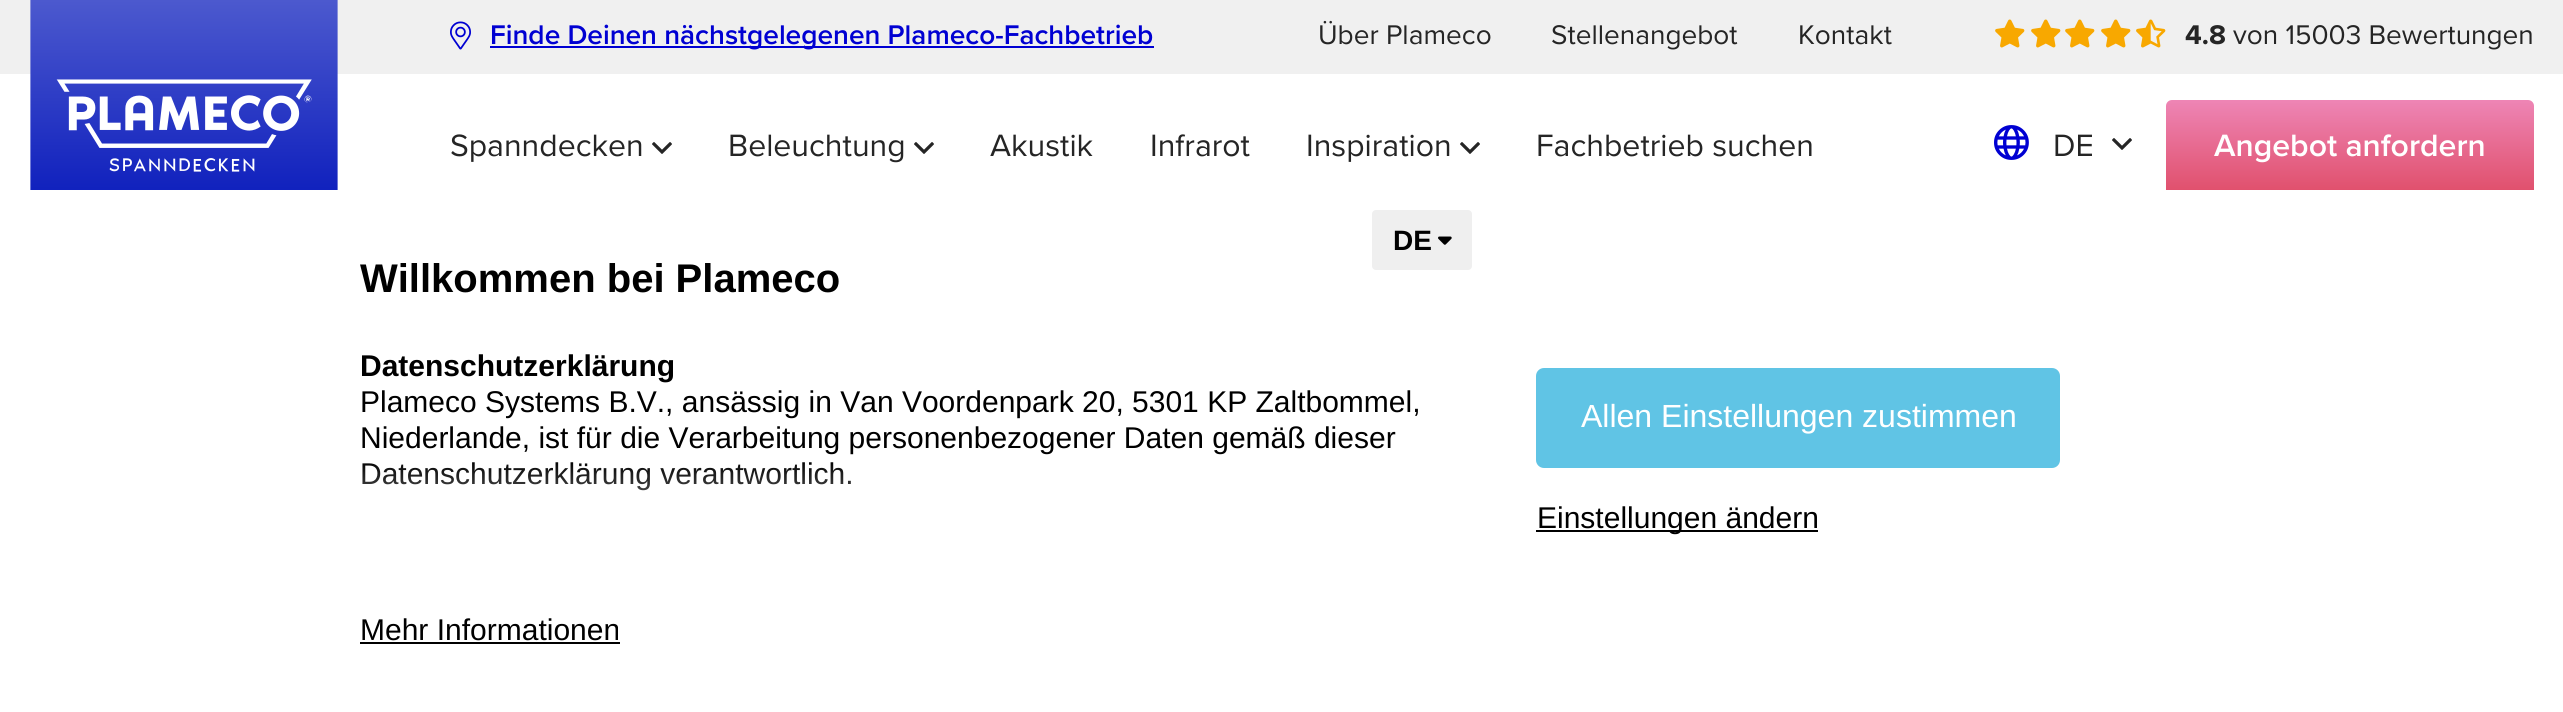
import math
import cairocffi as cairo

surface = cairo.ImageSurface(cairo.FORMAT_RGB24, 2563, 712)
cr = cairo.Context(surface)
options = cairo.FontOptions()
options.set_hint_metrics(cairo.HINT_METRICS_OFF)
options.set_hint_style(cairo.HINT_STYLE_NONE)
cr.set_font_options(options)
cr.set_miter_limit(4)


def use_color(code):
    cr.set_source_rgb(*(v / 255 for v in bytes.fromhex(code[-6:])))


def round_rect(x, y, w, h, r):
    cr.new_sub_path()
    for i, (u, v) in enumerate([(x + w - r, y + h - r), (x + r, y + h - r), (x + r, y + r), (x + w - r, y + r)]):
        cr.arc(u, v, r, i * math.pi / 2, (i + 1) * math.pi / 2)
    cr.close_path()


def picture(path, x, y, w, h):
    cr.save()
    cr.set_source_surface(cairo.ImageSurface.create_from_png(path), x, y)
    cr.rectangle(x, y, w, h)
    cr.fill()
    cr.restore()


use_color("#ffffff")
cr.paint()
use_color("#f0f0f0")
cr.rectangle(0, 0, 2563, 74)
cr.fill()
picture("img1.png", 30, 0, 308, 190)
picture("img2.png", 450, 21, 21, 29)
use_color("#0000d2")
cr.rectangle(490, 46, 664, 2)
cr.fill()
cr.select_font_face("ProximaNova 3")
cr.set_font_size(28)
cr.move_to(490, 44)
cr.show_text("Finde Deinen nächstgelegenen Plameco-Fachbetrieb")
cr.select_font_face("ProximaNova")
use_color("#252525")
cr.move_to(1318, 44)
cr.show_text("Über Plameco")
cr.move_to(1551, 44)
cr.show_text("Stellenangebot")
cr.move_to(1798, 44)
cr.show_text("Kontakt")
picture("img3.png", 1995, 19, 30, 29)
picture("img3.png", 2031, 19, 30, 29)
picture("img3.png", 2065, 19, 30, 29)
picture("img3.png", 2101, 19, 30, 29)
picture("img4.png", 2136, 19, 30, 29)
cr.select_font_face("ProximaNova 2")
cr.move_to(2185, 44)
cr.show_text("4.8")
cr.select_font_face("ProximaNova")
cr.move_to(2233, 44)
cr.show_text("von 15003 Bewertungen")
cr.set_font_size(32)
cr.move_to(450, 156)
cr.show_text("Spanndecken")
picture("img5.png", 652, 142, 20, 12)
cr.move_to(728, 156)
cr.show_text("Beleuchtung")
picture("img5.png", 914, 142, 20, 12)
cr.move_to(990, 156)
cr.show_text("Akustik")
cr.move_to(1150, 156)
cr.show_text("Infrarot")
cr.move_to(1306, 156)
cr.show_text("Inspiration")
picture("img5.png", 1460, 142, 20, 12)
cr.move_to(1536, 156)
cr.show_text("Fachbetrieb suchen")
picture("img6.png", 1994, 125, 35, 35)
cr.move_to(2053, 156)
cr.show_text("DE")
picture("img5.png", 2112, 138, 20, 12)
gradient = cairo.LinearGradient(2350, 100, 2350, 198)
gradient.add_color_stop_rgba(0, 0.933, 0.522, 0.71, 1)
gradient.add_color_stop_rgba(1, 0.875, 0.298, 0.404, 1)
cr.set_source(gradient)
round_rect(2166, 100, 368, 98, 6)
cr.fill()
cr.select_font_face("ProximaNova 3")
use_color("#ffffff")
cr.move_to(2214, 156)
cr.show_text("Angebot anfordern")
cr.rectangle(2166, 190, 368, 8)
cr.fill()
use_color("#efefef")
round_rect(1372, 210, 100, 60, 4)
cr.fill()
picture("img7.png", 1438, 236, 14, 9)
cr.select_font_face("Liberation Sans", cairo.FONT_SLANT_NORMAL, cairo.FONT_WEIGHT_BOLD)
cr.set_font_size(28)
use_color("#000000")
cr.move_to(1393, 250)
cr.show_text("DE")
cr.set_font_size(40)
cr.move_to(360, 292)
cr.show_text("Willkommen bei Plameco")
cr.set_font_size(30)
cr.move_to(360, 376)
cr.show_text("Datenschutzerklärung")
cr.select_font_face("Liberation Sans")
cr.move_to(360, 412)
cr.show_text("Plameco Systems B.V., ansässig in Van Voordenpark 20, 5301 KP Zaltbommel,")
cr.move_to(360, 448)
cr.show_text("Niederlande, ist für die Verarbeitung personenbezogener Daten gemäß dieser")
cr.move_to(360, 484)
cr.show_text("Datenschutzerklärung verantwortlich.")
gradient = cairo.LinearGradient(916, 460, 916, 580)
gradient.add_color_stop_rgba(0, 1, 1, 1, 0)
gradient.add_color_stop_rgba(1, 1, 1, 1, 1)
cr.set_source(gradient)
cr.rectangle(362, 463, 489, 28)
cr.fill()
use_color("#000000")
cr.move_to(360, 640)
cr.show_text("Mehr Informationen")
cr.rectangle(360, 642, 260, 2)
cr.fill()
use_color("#60c4e5")
round_rect(1536, 368, 524, 100, 8)
cr.fill()
cr.set_font_size(32)
use_color("#ffffff")
cr.move_to(1581, 427)
cr.show_text("Allen Einstellungen zustimmen")
use_color("#000000")
cr.rectangle(1536, 530, 282, 2)
cr.fill()
cr.set_font_size(30)
cr.move_to(1537, 528)
cr.show_text("Einstellungen ändern")
surface.write_to_png("result.png")
